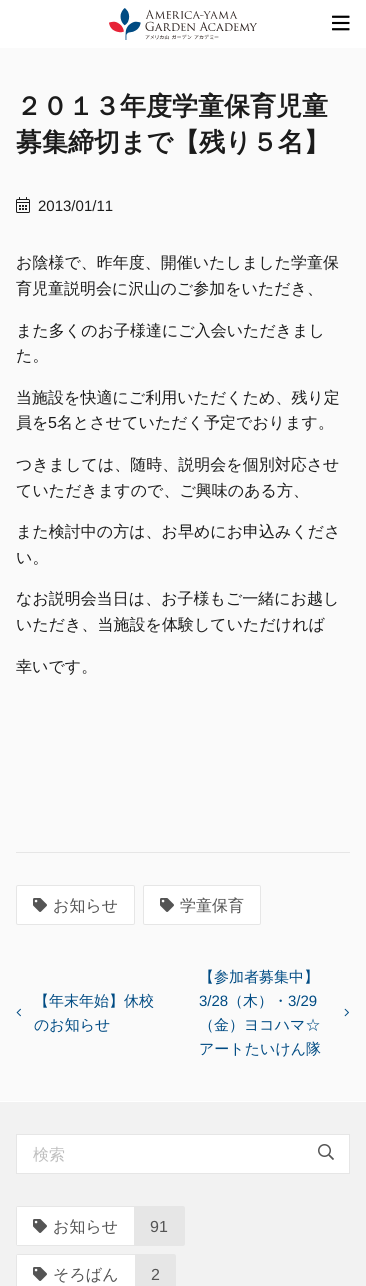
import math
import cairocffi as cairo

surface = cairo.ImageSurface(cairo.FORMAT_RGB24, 366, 1286)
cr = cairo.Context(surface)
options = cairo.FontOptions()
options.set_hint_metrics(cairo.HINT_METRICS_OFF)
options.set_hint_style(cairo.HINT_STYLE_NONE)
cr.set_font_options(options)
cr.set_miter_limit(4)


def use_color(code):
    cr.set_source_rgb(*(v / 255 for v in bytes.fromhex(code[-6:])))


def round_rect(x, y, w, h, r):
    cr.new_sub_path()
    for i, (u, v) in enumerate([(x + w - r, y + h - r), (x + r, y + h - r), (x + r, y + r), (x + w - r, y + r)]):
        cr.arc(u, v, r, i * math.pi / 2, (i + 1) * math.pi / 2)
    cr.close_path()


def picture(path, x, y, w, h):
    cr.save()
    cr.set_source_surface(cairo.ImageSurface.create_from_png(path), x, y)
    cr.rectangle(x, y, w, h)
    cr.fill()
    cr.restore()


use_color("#fafafa")
cr.paint()
use_color("#ffffff")
cr.rectangle(0, 0, 366, 48)
cr.fill()
picture("img1.png", 109, 8, 148, 32)
picture("img2.png", 332, 15, 18, 16)
cr.select_font_face("WenQuanYi Zen Hei", cairo.FONT_SLANT_NORMAL, cairo.FONT_WEIGHT_BOLD)
cr.set_font_size(26)
use_color("#1b1b1b")
cr.move_to(16, 115)
cr.show_text("２０１３年度学童保育児童")
cr.move_to(16, 151)
cr.show_text("募集締切まで【残り５名】")
picture("img3.png", 16, 197, 14, 16)
cr.select_font_face("Liberation Sans")
cr.set_font_size(15)
cr.move_to(38, 211)
cr.show_text("2013/01/11")
cr.select_font_face("WenQuanYi Zen Hei Medium")
cr.set_font_size(16)
cr.move_to(16, 268)
cr.show_text("お陰様で、昨年度、開催いたしました学童保")
cr.move_to(16, 294)
cr.show_text("育児童説明会に沢山のご参加をいただき、")
cr.move_to(16, 336)
cr.show_text("また多くのお子様達にご入会いただきまし")
cr.move_to(16, 361)
cr.show_text("た。")
cr.move_to(16, 403)
cr.show_text("当施設を快適にご利用いただくため、残り定")
cr.move_to(16, 428)
cr.show_text("員を")
cr.select_font_face("Liberation Sans")
cr.move_to(48, 428)
cr.show_text("5")
cr.select_font_face("WenQuanYi Zen Hei Medium")
cr.move_to(57, 428)
cr.show_text("名とさせていただく予定でおります。")
cr.move_to(16, 470)
cr.show_text("つきましては、随時、説明会を個別対応させ")
cr.move_to(16, 496)
cr.show_text("ていただきますので、ご興味のある方、")
cr.move_to(16, 537)
cr.show_text("また検討中の方は、お早めにお申込みくださ")
cr.move_to(16, 563)
cr.show_text("い。")
cr.move_to(16, 604)
cr.show_text("なお説明会当日は、お子様もご一緒にお越し")
cr.move_to(16, 630)
cr.show_text("いただき、当施設を体験していただければ")
cr.move_to(16, 672)
cr.show_text("幸いです。")
use_color("#e6e6e6")
cr.rectangle(16, 852, 334, 1)
cr.fill()
use_color("#ffffff")
round_rect(16.5, 885.5, 118, 39, 1.5)
cr.fill_preserve()
use_color("#e6e6e6")
cr.set_line_width(1)
cr.stroke()
picture("img4.png", 33, 898, 14, 14)
use_color("#545454")
cr.move_to(53, 911)
cr.show_text("お知らせ")
use_color("#ffffff")
round_rect(143.5, 885.5, 117, 39, 1.5)
cr.fill_preserve()
use_color("#e6e6e6")
cr.stroke()
picture("img4.png", 160, 898, 14, 14)
use_color("#545454")
cr.move_to(180, 911)
cr.show_text("学童保育")
picture("img5.png", 16, 1008, 5, 9)
cr.set_font_size(15)
use_color("#004b83")
cr.move_to(34, 1006)
cr.show_text("【年末年始】休校")
cr.move_to(34, 1030)
cr.show_text("のお知らせ")
cr.move_to(199, 982)
cr.show_text("【参加者募集中】")
cr.select_font_face("Liberation Sans")
cr.move_to(199, 1006)
cr.show_text("3/28")
cr.select_font_face("WenQuanYi Zen Hei Medium")
cr.move_to(228, 1006)
cr.show_text("（木）・")
cr.select_font_face("Liberation Sans")
cr.move_to(288, 1006)
cr.show_text("3/29")
cr.select_font_face("WenQuanYi Zen Hei Medium")
cr.move_to(199, 1030)
cr.show_text("（金）ヨコハマ☆")
cr.move_to(199, 1054)
cr.show_text("アートたいけん隊")
picture("img6.png", 344, 1008, 5, 9)
use_color("#f2f2f2")
cr.rectangle(0, 1102, 366, 184)
cr.fill()
use_color("#ffffff")
cr.rectangle(0, 1101, 366, 1)
cr.fill()
cr.rectangle(16.5, 1134.5, 333, 39)
cr.fill_preserve()
use_color("#e6e6e6")
cr.stroke()
cr.set_font_size(16)
use_color("#bfbfbf")
cr.move_to(33, 1160)
cr.show_text("検索")
picture("img7.png", 318, 1144, 16, 16)
use_color("#e6e6e6")
round_rect(16, 1206, 169, 40, 2)
cr.fill()
use_color("#ffffff")
cr.rectangle(17, 1207, 117, 38)
cr.fill()
picture("img4.png", 33, 1219, 14, 14)
use_color("#545454")
cr.move_to(53, 1232)
cr.show_text("お知らせ")
cr.select_font_face("Liberation Sans")
cr.move_to(150, 1232)
cr.show_text("91")
use_color("#e6e6e6")
round_rect(16, 1254, 160, 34, 2)
cr.fill()
use_color("#ffffff")
cr.rectangle(17, 1255, 118, 31)
cr.fill()
picture("img4.png", 33, 1267, 14, 14)
cr.select_font_face("WenQuanYi Zen Hei Medium")
use_color("#545454")
cr.move_to(53, 1280)
cr.show_text("そろばん")
cr.select_font_face("Liberation Sans")
cr.move_to(151, 1280)
cr.show_text("2")
surface.write_to_png("result.png")
